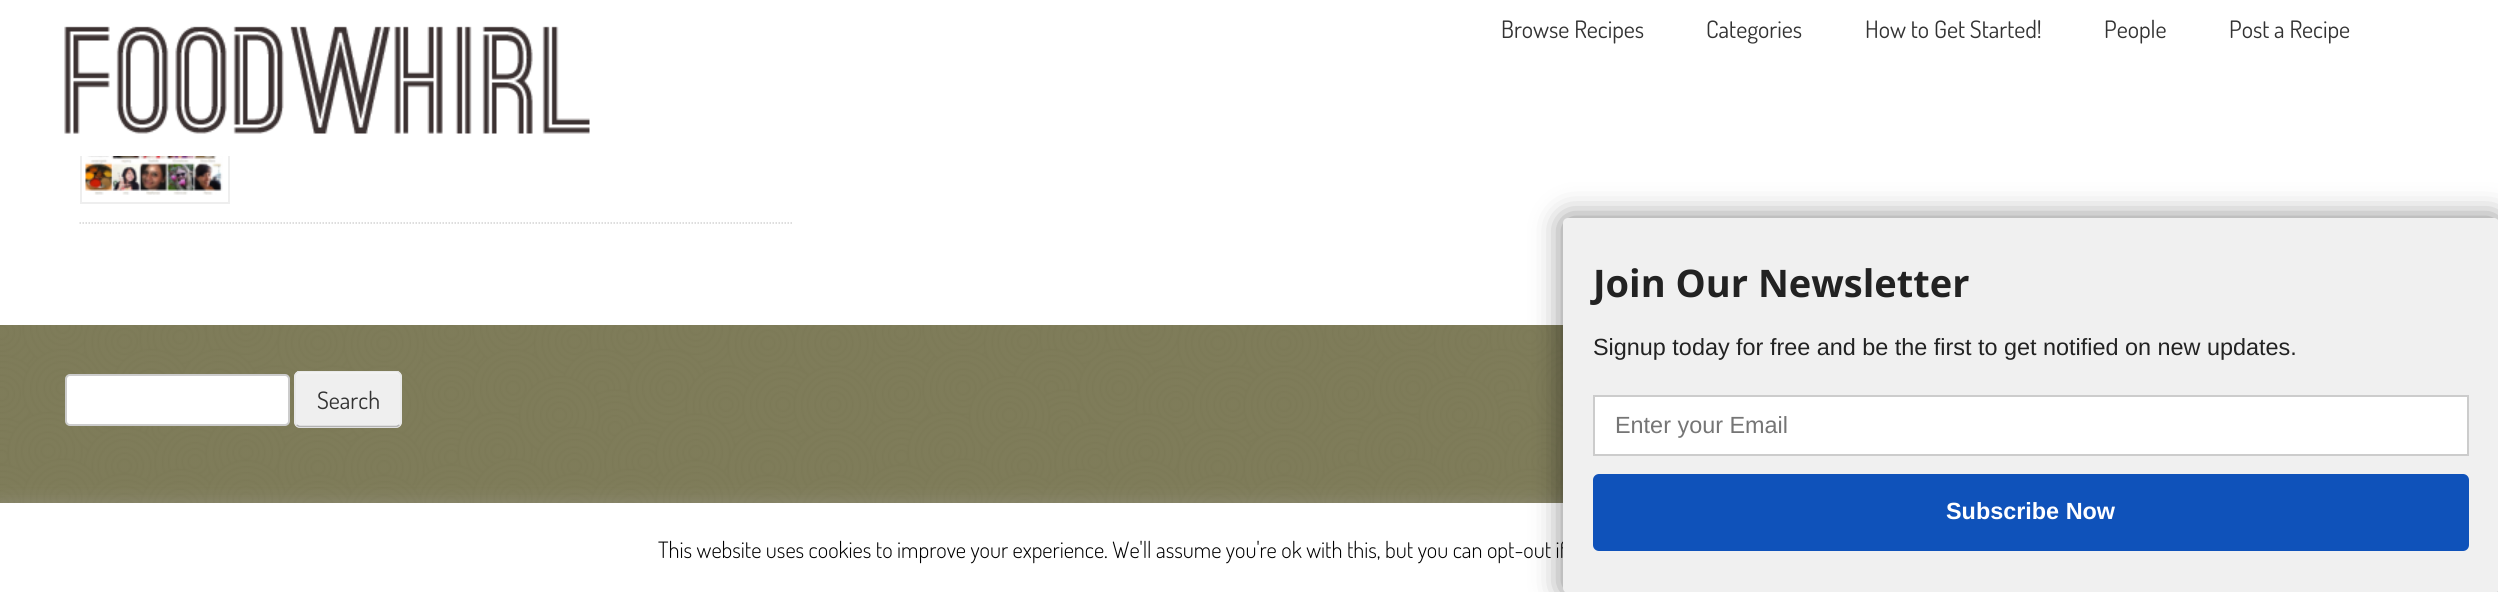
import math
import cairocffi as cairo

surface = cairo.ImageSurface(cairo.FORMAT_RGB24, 2498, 592)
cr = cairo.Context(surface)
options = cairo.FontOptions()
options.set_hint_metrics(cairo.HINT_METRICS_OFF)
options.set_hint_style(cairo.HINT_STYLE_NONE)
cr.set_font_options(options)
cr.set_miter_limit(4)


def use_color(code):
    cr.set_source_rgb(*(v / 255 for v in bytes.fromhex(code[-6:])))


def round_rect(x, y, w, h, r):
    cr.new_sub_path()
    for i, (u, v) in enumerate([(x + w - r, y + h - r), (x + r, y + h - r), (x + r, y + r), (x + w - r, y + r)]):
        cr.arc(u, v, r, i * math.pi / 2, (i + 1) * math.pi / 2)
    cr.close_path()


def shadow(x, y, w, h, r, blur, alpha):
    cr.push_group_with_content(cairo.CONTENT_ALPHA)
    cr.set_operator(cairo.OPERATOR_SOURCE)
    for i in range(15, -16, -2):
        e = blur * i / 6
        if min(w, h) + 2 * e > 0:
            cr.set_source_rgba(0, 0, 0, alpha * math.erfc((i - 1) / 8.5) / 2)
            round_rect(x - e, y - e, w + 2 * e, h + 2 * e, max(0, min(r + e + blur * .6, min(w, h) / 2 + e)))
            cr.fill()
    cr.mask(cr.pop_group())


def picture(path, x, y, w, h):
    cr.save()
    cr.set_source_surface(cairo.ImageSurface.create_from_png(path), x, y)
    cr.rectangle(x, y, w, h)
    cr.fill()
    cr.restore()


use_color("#ffffff")
cr.paint()
cr.rectangle(81, 55, 148, 148)
use_color("#eeeeee")
cr.stroke()
use_color("#ffffff")
cr.rectangle(80, 54, 150, 102)
cr.fill()
picture("img1.png", 64, 26, 526, 108)
cr.select_font_face("Dosis")
cr.set_font_size(24)
use_color("#333333")
cr.move_to(1501, 38)
cr.show_text("Browse Recipes")
cr.move_to(1706, 38)
cr.show_text("Categories")
cr.move_to(1865, 38)
cr.show_text("How to Get Started!")
cr.move_to(2104, 38)
cr.show_text("People")
cr.move_to(2229, 38)
cr.show_text("Post a Recipe")
cr.new_path()
cr.move_to(79.5, 223)
cr.line_to(793.5, 223)
use_color("#d3d3d3")
cr.set_line_width(1.5)
cr.set_dash([1.5, 1.5])
cr.stroke()
picture("img2.png", 85, 156, 138, 39)
picture("img3.png", 0, 325, 1563, 178)
use_color("#ffffff")
round_rect(66, 375, 223, 50, 4)
cr.fill_preserve()
use_color("#cccccc")
cr.set_line_width(2)
cr.set_dash([])
cr.stroke()
use_color("#efefef")
round_rect(294, 371, 108, 57, 6)
cr.fill()
use_color("#f2f2f2")
cr.new_path()
cr.move_to(300, 374)
cr.line_to(396, 374)
cr.curve_to(402, 374, 400, 383, 400, 386)
cr.line_to(400, 424)
cr.curve_to(401, 423, 401, 422, 401, 421)
cr.line_to(401, 377)
cr.curve_to(401, 374, 399, 372, 396, 372)
cr.line_to(301, 372)
cr.curve_to(298, 372, 296, 374, 296, 377)
cr.line_to(296, 378)
cr.curve_to(296, 376, 298, 374, 300, 374)
cr.close_path()
cr.fill()
cr.new_path()
cr.move_to(399.5, 425)
cr.line_to(396.5, 426.5)
cr.line_to(299.5, 426.5)
cr.line_to(296.5, 425)
use_color("#b3b3b3")
cr.set_line_width(1.5)
cr.stroke()
cr.save()
cr.rectangle(65, 371, 2370, 78)
cr.clip()
cr.new_path()
cr.move_to(296.5, 425)
cr.curve_to(295.5, 424, 295, 423, 295, 421.5)
cr.line_to(295, 376.5)
cr.curve_to(295, 375, 295.5, 374, 296.5, 373)
cr.curve_to(297.5, 372, 298.5, 371, 300, 371)
cr.line_to(396, 371)
cr.curve_to(397.5, 371, 398.5, 372, 399.5, 373)
cr.curve_to(400.5, 374, 401, 375, 401, 376.5)
cr.line_to(401, 421.5)
cr.curve_to(401, 423, 400.5, 424, 399.5, 425)
use_color("#e6e6e6")
cr.stroke()
cr.restore()
use_color("#333333")
cr.move_to(317, 409)
cr.show_text("Search")
use_color("#acabab")
shadow(0, 501, 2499, 90, 0, 7.5, 0.3)
use_color("#ffffff")
cr.rectangle(0, 503, 2498, 89)
cr.fill()
use_color("#000000")
shadow(1563, 218, 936, 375, 5, 14.5, 0.5)
cr.select_font_face("Dosis Light")
cr.set_font_size(22.5)
use_color("#000000")
cr.move_to(658, 558)
cr.show_text("This website uses cookies to improve your experience. We'll assume you're ok with this, but you can opt-out if")
use_color("#f0f0f0")
round_rect(1563, 218, 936, 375, 5)
cr.fill()
cr.select_font_face("Open Sans", cairo.FONT_SLANT_NORMAL, cairo.FONT_WEIGHT_BOLD)
cr.set_font_size(38)
use_color("#222222")
cr.move_to(1593, 297)
cr.show_text("Join Our Newsletter")
cr.select_font_face("Liberation Sans")
cr.set_font_size(23.4)
cr.move_to(1593, 355)
cr.show_text("Signup today for free and be the first to get notified on new updates.")
use_color("#ffffff")
cr.rectangle(1594, 396, 874, 59)
cr.fill_preserve()
use_color("#cccccc")
cr.set_line_width(2)
cr.stroke()
use_color("#757575")
cr.move_to(1615, 433)
cr.show_text("Enter your Email")
use_color("#0f52ba")
round_rect(1593, 474, 876, 77, 6)
cr.fill()
cr.select_font_face("Liberation Sans", cairo.FONT_SLANT_NORMAL, cairo.FONT_WEIGHT_BOLD)
use_color("#ffffff")
cr.move_to(1946, 519)
cr.show_text("Subscribe Now")
surface.write_to_png("result.png")
